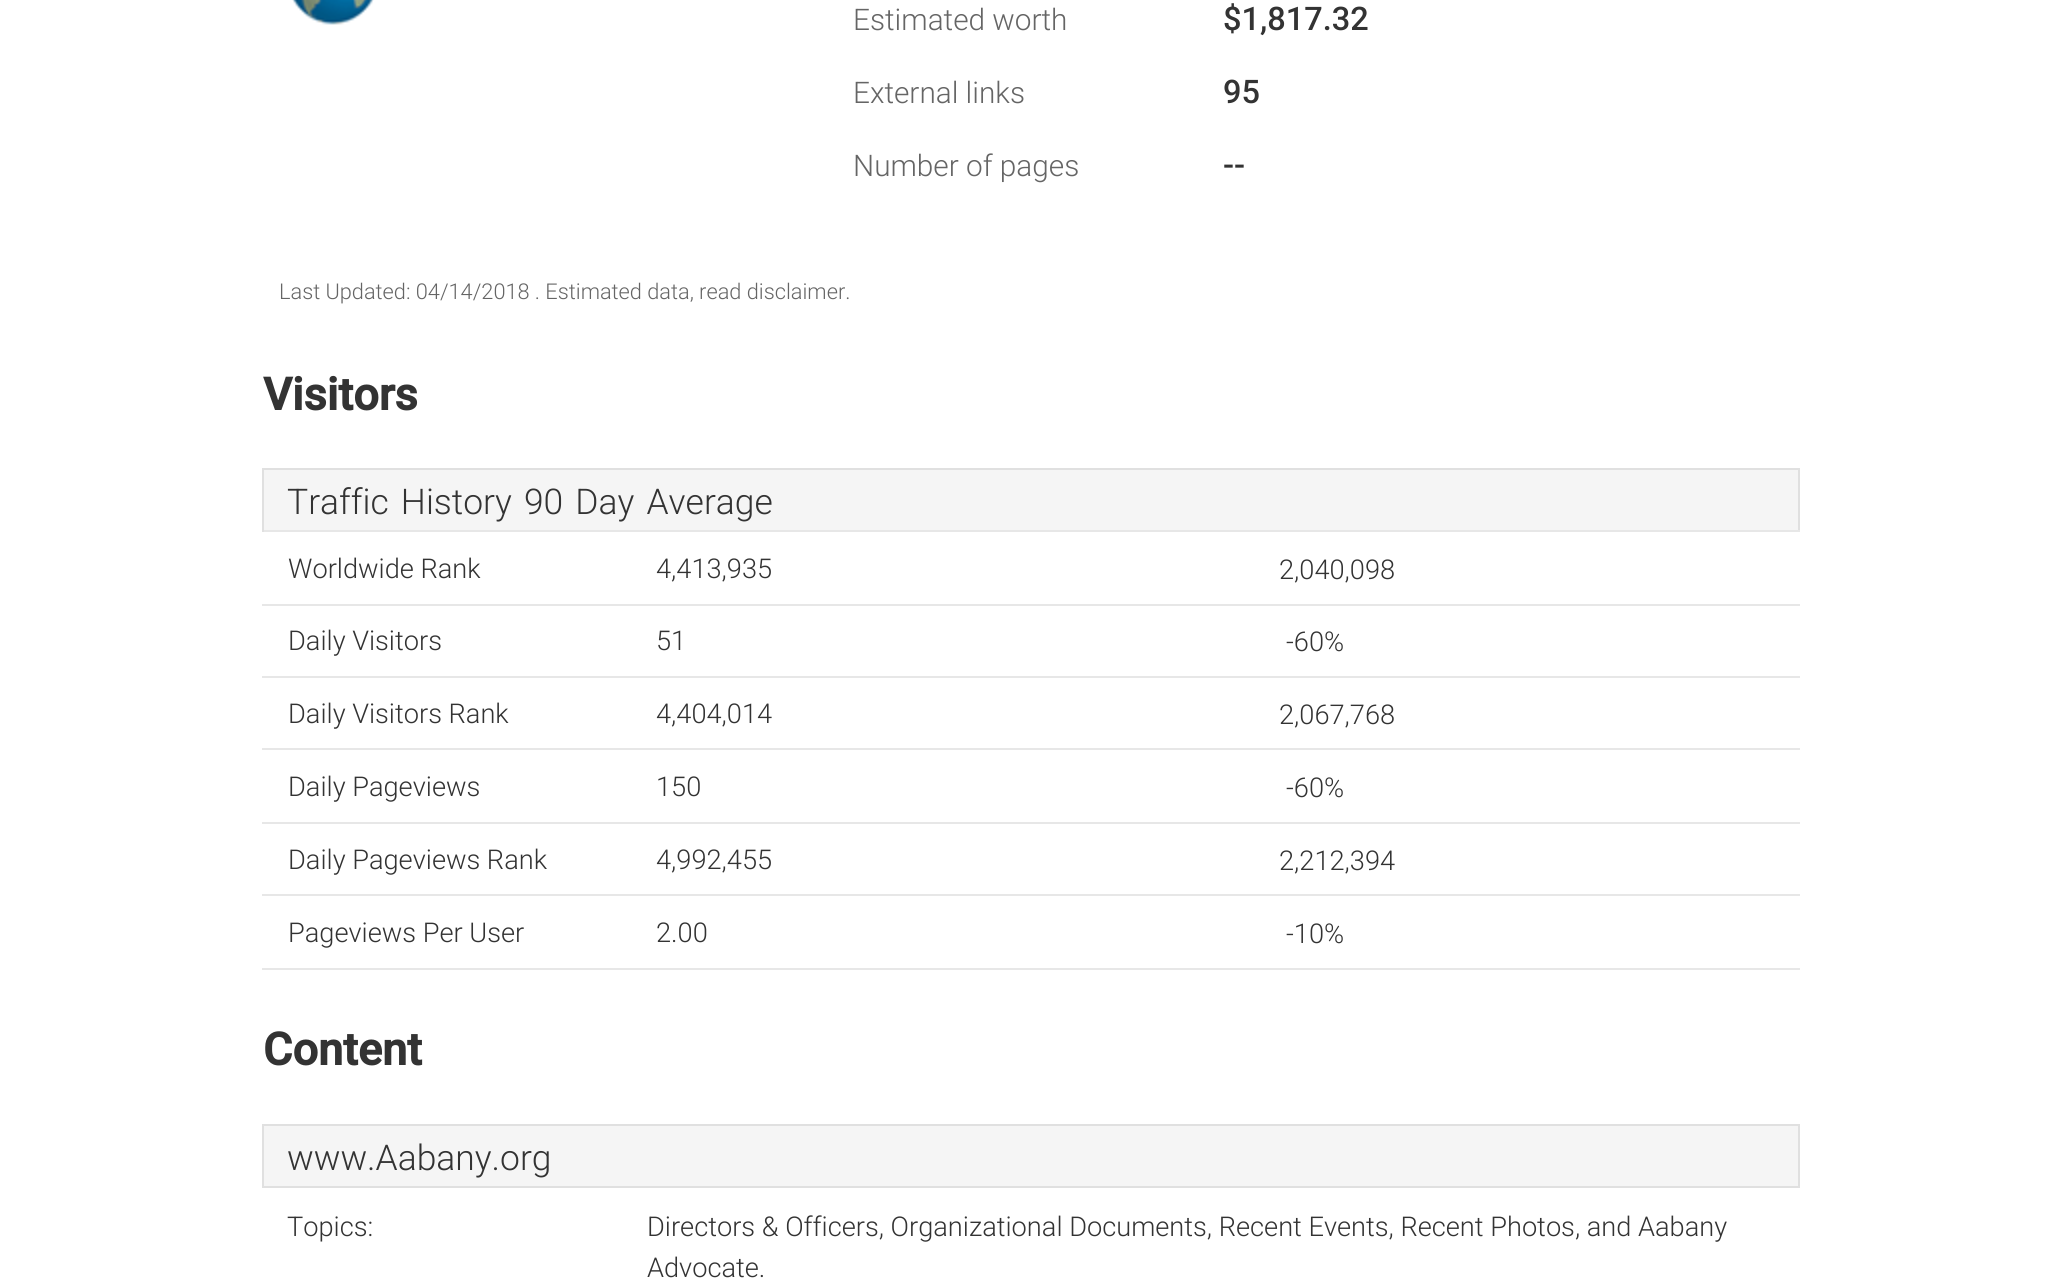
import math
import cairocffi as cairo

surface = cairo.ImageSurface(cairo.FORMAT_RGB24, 2061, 1281)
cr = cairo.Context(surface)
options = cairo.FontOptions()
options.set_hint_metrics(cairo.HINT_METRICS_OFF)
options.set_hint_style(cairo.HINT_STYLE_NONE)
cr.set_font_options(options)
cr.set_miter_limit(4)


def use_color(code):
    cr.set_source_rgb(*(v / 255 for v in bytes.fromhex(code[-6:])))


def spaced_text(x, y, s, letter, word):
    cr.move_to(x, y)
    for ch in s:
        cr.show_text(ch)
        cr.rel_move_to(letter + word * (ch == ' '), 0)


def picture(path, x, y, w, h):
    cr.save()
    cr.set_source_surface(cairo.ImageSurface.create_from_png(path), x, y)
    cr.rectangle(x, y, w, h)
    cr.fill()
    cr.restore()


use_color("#ffffff")
cr.paint()
picture("img1.png", 292, 0, 82, 25)
cr.select_font_face("Roboto Light")
cr.set_font_size(29.75)
use_color("#656565")
cr.move_to(853, 30)
cr.show_text("Estimated worth")
cr.select_font_face("Roboto Medium")
cr.set_font_size(32.5)
use_color("#333333")
cr.move_to(1223, 30)
cr.show_text("$1,817.32")
cr.select_font_face("Roboto Light")
cr.set_font_size(29.75)
use_color("#656565")
cr.move_to(853, 103)
cr.show_text("External links")
cr.select_font_face("Roboto Medium")
cr.set_font_size(32.5)
use_color("#333333")
cr.move_to(1223, 103)
cr.show_text("95")
cr.select_font_face("Roboto Light")
cr.set_font_size(29.75)
use_color("#656565")
cr.move_to(853, 176)
cr.show_text("Number of pages")
cr.select_font_face("Roboto Medium")
cr.set_font_size(32.5)
use_color("#333333")
cr.move_to(1223, 176)
cr.show_text("--")
cr.select_font_face("Roboto Light")
cr.set_font_size(21.75)
use_color("#656565")
cr.move_to(279, 299)
cr.show_text("Last Updated: 04/14/2018 . Estimated data, read disclaimer.")
cr.select_font_face("Roboto", cairo.FONT_SLANT_NORMAL, cairo.FONT_WEIGHT_BOLD)
cr.set_font_size(45)
use_color("#333333")
cr.move_to(263, 410)
cr.show_text("Visitors")
use_color("#e0e0e0")
cr.rectangle(262, 468, 1538, 2)
cr.fill()
cr.rectangle(1798, 468, 2, 64)
cr.fill()
use_color("#e7e7e7")
cr.rectangle(262, 530, 1538, 2)
cr.fill()
use_color("#e0e0e0")
cr.rectangle(262, 468, 2, 64)
cr.fill()
use_color("#f5f5f5")
cr.rectangle(264, 470, 1534, 60)
cr.fill()
cr.select_font_face("Roboto Light")
cr.set_font_size(35.4)
use_color("#333333")
spaced_text(287, 514, "Traffic History 90 Day Average", 0, 3.5)
use_color("#e7e7e7")
cr.rectangle(262, 604, 1538, 2)
cr.fill()
cr.set_font_size(27.2)
use_color("#333333")
cr.move_to(288, 578)
cr.show_text("Worldwide Rank")
cr.move_to(656, 578)
cr.show_text("4,413,935")
cr.move_to(1279, 579)
cr.show_text("2,040,098")
use_color("#e7e7e7")
cr.rectangle(262, 676, 1538, 2)
cr.fill()
use_color("#333333")
cr.move_to(288, 650)
cr.show_text("Daily Visitors")
cr.move_to(656, 650)
cr.show_text("51")
cr.move_to(1286, 651)
cr.show_text("-60%")
use_color("#e7e7e7")
cr.rectangle(262, 748, 1538, 2)
cr.fill()
use_color("#333333")
cr.move_to(288, 723)
cr.show_text("Daily Visitors Rank")
cr.move_to(656, 723)
cr.show_text("4,404,014")
cr.move_to(1279, 724)
cr.show_text("2,067,768")
use_color("#e7e7e7")
cr.rectangle(262, 822, 1538, 2)
cr.fill()
use_color("#333333")
cr.move_to(288, 796)
cr.show_text("Daily Pageviews")
cr.move_to(656, 796)
cr.show_text("150")
cr.move_to(1286, 797)
cr.show_text("-60%")
use_color("#e7e7e7")
cr.rectangle(262, 894, 1538, 2)
cr.fill()
use_color("#333333")
cr.move_to(288, 869)
cr.show_text("Daily Pageviews Rank")
cr.move_to(656, 869)
cr.show_text("4,992,455")
cr.move_to(1279, 870)
cr.show_text("2,212,394")
use_color("#e7e7e7")
cr.rectangle(262, 968, 1538, 2)
cr.fill()
use_color("#333333")
cr.move_to(288, 942)
cr.show_text("Pageviews Per User")
cr.move_to(656, 942)
cr.show_text("2.00")
cr.move_to(1286, 943)
cr.show_text("-10%")
cr.select_font_face("Roboto", cairo.FONT_SLANT_NORMAL, cairo.FONT_WEIGHT_BOLD)
cr.set_font_size(45)
cr.move_to(263, 1065)
cr.show_text("Content")
use_color("#f5f5f5")
cr.rectangle(263, 1125, 1536, 62)
cr.fill_preserve()
use_color("#e0e0e0")
cr.stroke()
cr.select_font_face("Roboto Light")
cr.set_font_size(35.4)
use_color("#333333")
cr.move_to(287, 1170)
cr.show_text("www.Aabany.org")
cr.set_font_size(27.2)
cr.move_to(287, 1236)
cr.show_text("Topics:")
cr.move_to(647, 1236)
cr.show_text("Directors & Officers, Organizational Documents, Recent Events, Recent Photos, and Aabany")
cr.move_to(647, 1277)
cr.show_text("Advocate.")
surface.write_to_png("result.png")
